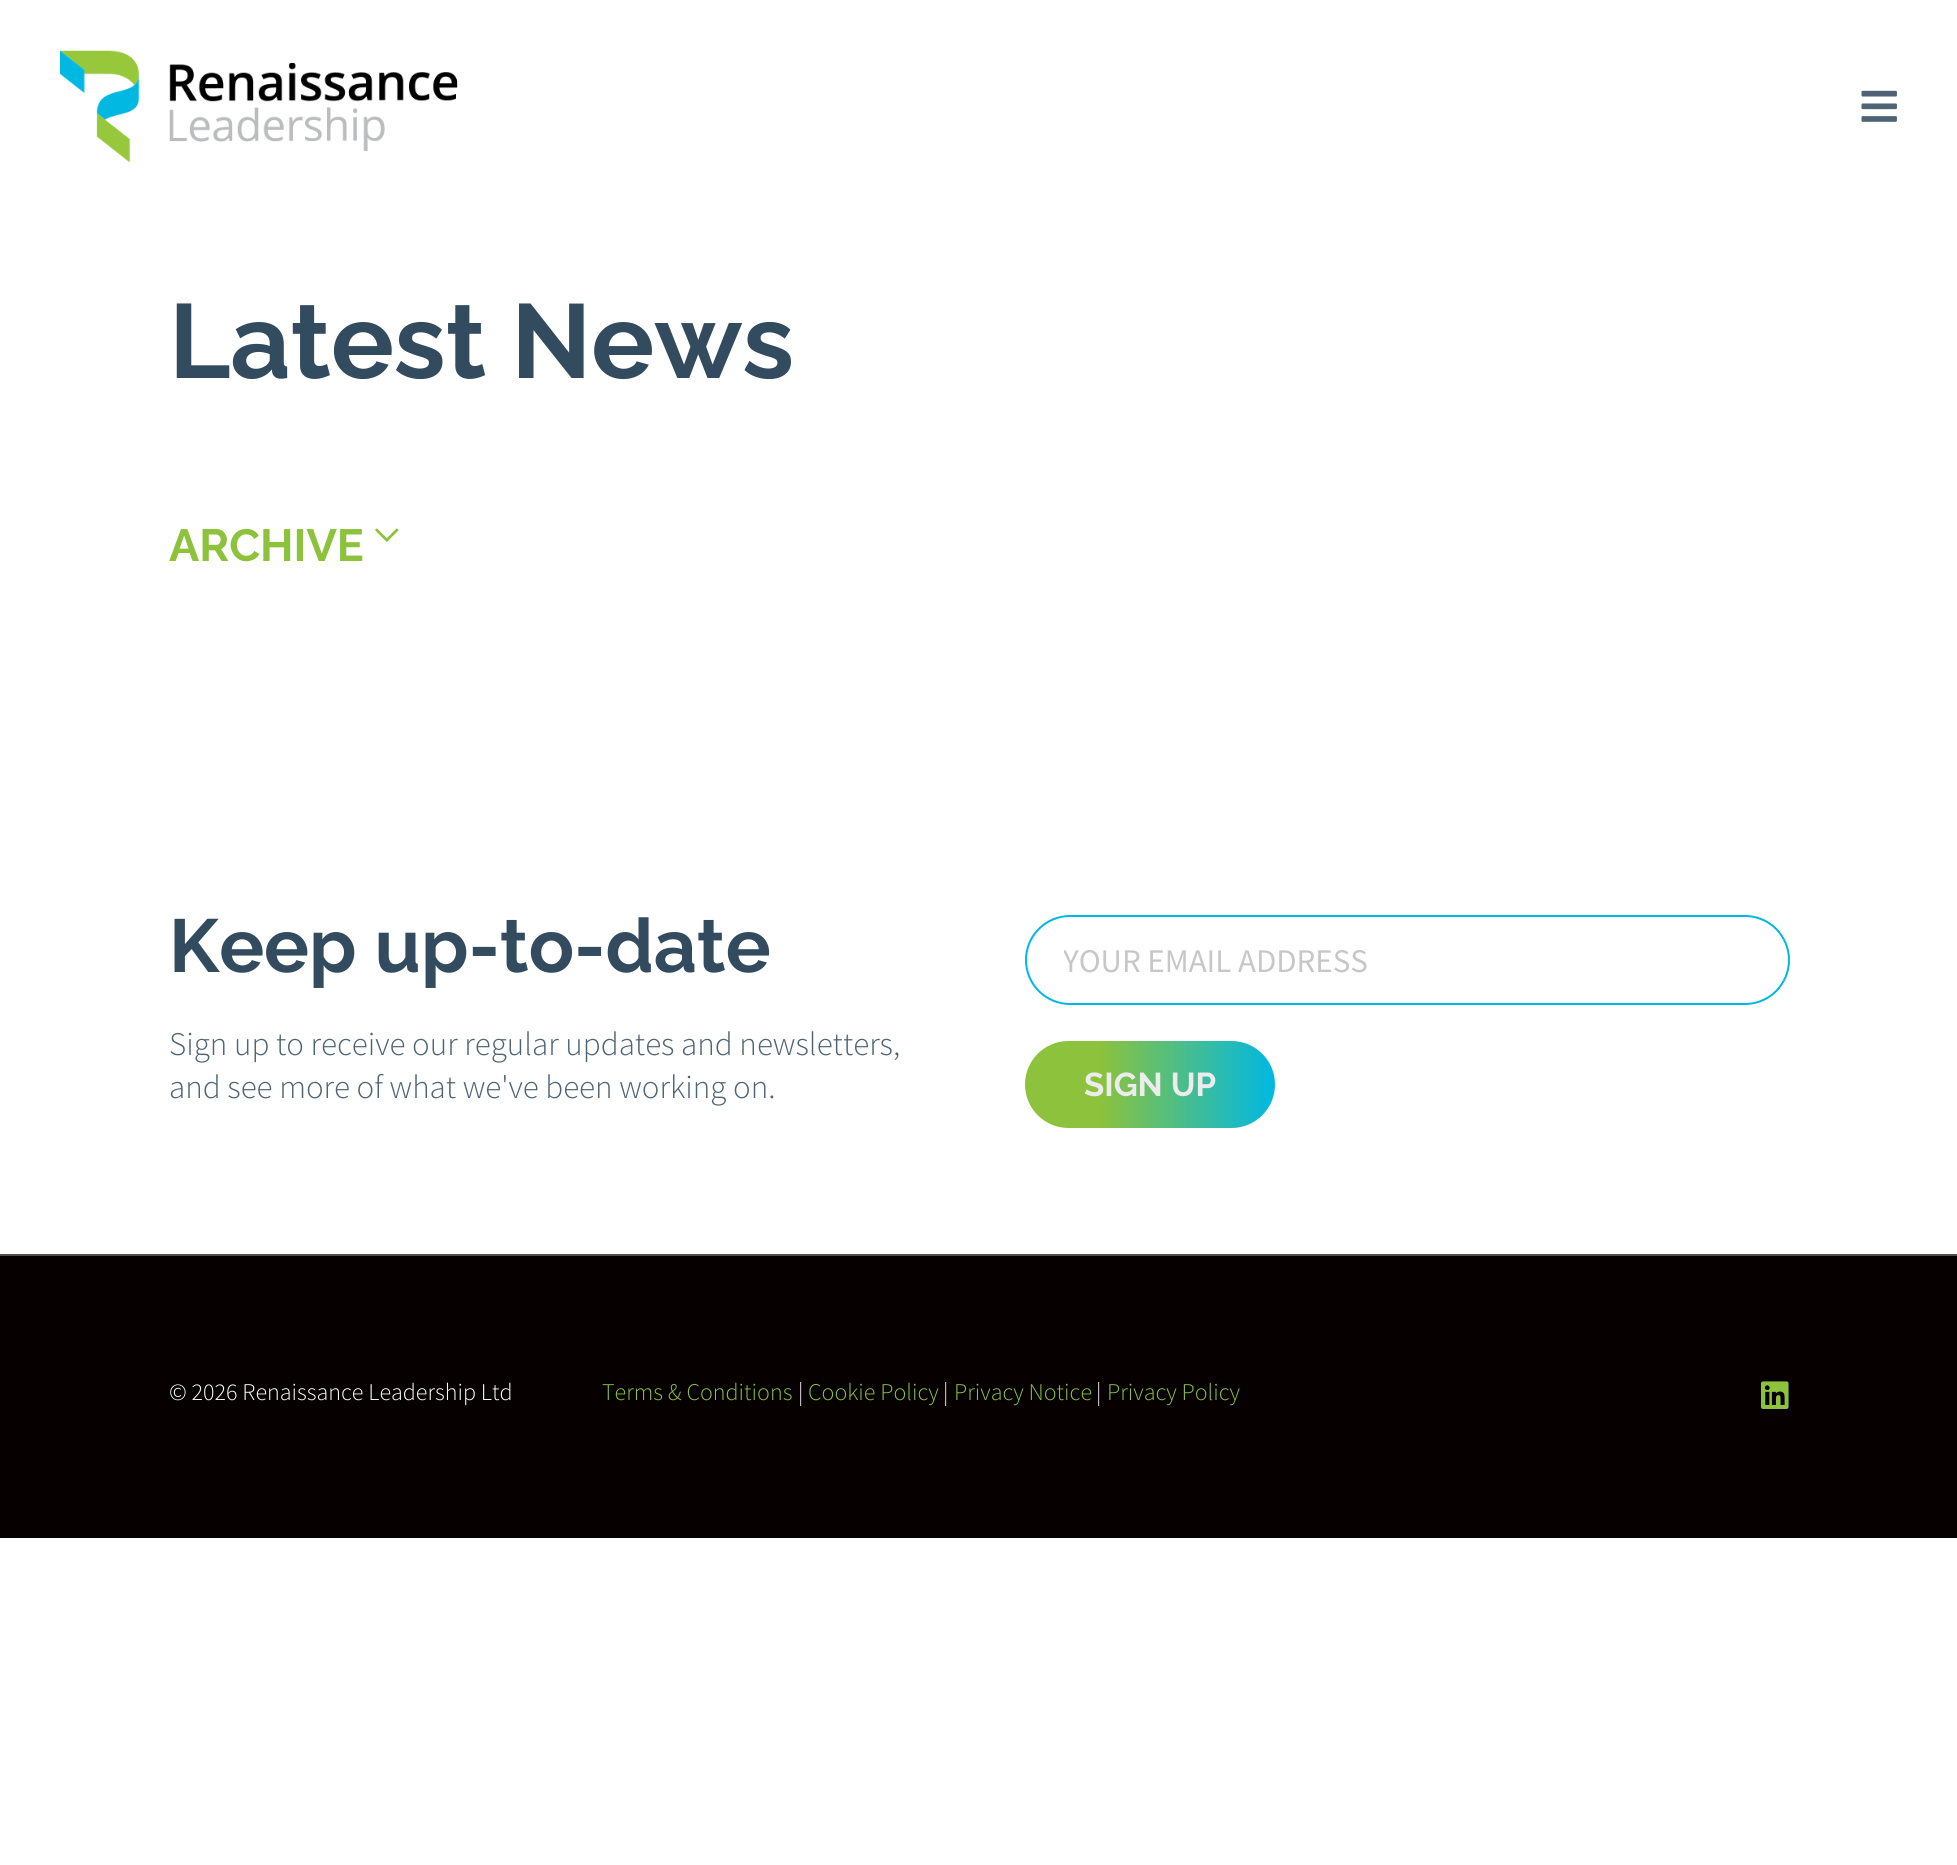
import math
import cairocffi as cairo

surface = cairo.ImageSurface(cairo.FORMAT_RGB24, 1957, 1865)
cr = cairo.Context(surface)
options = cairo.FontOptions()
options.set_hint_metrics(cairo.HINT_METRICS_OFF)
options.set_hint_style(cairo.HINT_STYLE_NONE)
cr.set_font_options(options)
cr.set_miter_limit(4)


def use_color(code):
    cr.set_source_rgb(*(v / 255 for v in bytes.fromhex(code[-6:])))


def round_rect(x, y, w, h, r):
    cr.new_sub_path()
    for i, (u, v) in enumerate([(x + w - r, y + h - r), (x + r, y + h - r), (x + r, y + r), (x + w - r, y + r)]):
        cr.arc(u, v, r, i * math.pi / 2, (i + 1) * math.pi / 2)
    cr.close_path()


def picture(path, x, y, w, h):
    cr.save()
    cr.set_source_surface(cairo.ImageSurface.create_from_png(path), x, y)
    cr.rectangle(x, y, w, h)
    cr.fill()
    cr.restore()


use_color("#ffffff")
cr.paint()
picture("img1.png", 60, 50, 80, 113)
picture("img2.png", 169, 62, 289, 89)
picture("img3.png", 1861, 90, 36, 32)
cr.select_font_face("Raleway", cairo.FONT_SLANT_NORMAL, cairo.FONT_WEIGHT_BOLD)
cr.set_font_size(105)
use_color("#334b5f")
cr.move_to(169, 378)
cr.show_text("Latest News")
cr.set_font_size(45)
use_color("#8cc23c")
cr.move_to(169, 561)
cr.show_text("ARCHIVE")
picture("img4.png", 375, 528, 24, 14)
cr.set_font_size(75)
use_color("#334b5f")
cr.move_to(169, 972)
cr.show_text("Keep up-to-date")
cr.select_font_face("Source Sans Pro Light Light")
cr.set_font_size(33)
use_color("#4e6374")
cr.move_to(169, 1055)
cr.show_text("Sign up to receive our regular updates and newsletters,")
cr.move_to(169, 1098)
cr.show_text("and see more of what we've been working on.")
round_rect(1026, 916, 763, 88, 44)
use_color("#00b8e3")
cr.stroke()
cr.save()
cr.rectangle(1064, 939, 687, 42)
cr.clip()
cr.select_font_face("Source Sans Pro")
use_color("#c7c7c7")
cr.move_to(1063, 972)
cr.show_text("YOUR EMAIL ADDRESS")
cr.restore()
gradient = cairo.LinearGradient(1025, 1085, 1275, 1085)
gradient.add_color_stop_rgba(0.3, 0.549, 0.761, 0.235, 1)
gradient.add_color_stop_rgba(1, 0, 0.722, 0.89, 1)
cr.set_source(gradient)
round_rect(1025, 1041, 250, 87, 43.5)
cr.fill()
cr.select_font_face("Raleway", cairo.FONT_SLANT_NORMAL, cairo.FONT_WEIGHT_BOLD)
use_color("#ececec")
cr.move_to(1084, 1096)
cr.show_text("SIGN UP")
use_color("#060000")
cr.rectangle(0, 1256, 1957, 282)
cr.fill()
use_color("#4f4d4e")
cr.rectangle(0, 1254, 1957, 2)
cr.fill()
cr.select_font_face("Source Sans Pro Light Light")
cr.set_font_size(24)
use_color("#ffffff")
cr.move_to(169, 1400)
cr.show_text("© 2026 Renaissance Leadership Ltd")
use_color("#8cc23c")
cr.move_to(602, 1400)
cr.show_text("Terms & Conditions")
use_color("#ffffff")
cr.move_to(798, 1400)
cr.show_text("|")
use_color("#8cc23c")
cr.move_to(808, 1400)
cr.show_text("Cookie Policy")
use_color("#ffffff")
cr.move_to(943, 1400)
cr.show_text("|")
use_color("#8cc23c")
cr.move_to(954, 1400)
cr.show_text("Privacy Notice")
use_color("#ffffff")
cr.move_to(1096, 1400)
cr.show_text("|")
use_color("#8cc23c")
cr.move_to(1107, 1400)
cr.show_text("Privacy Policy")
picture("img5.png", 1761, 1381, 28, 28)
surface.write_to_png("result.png")
